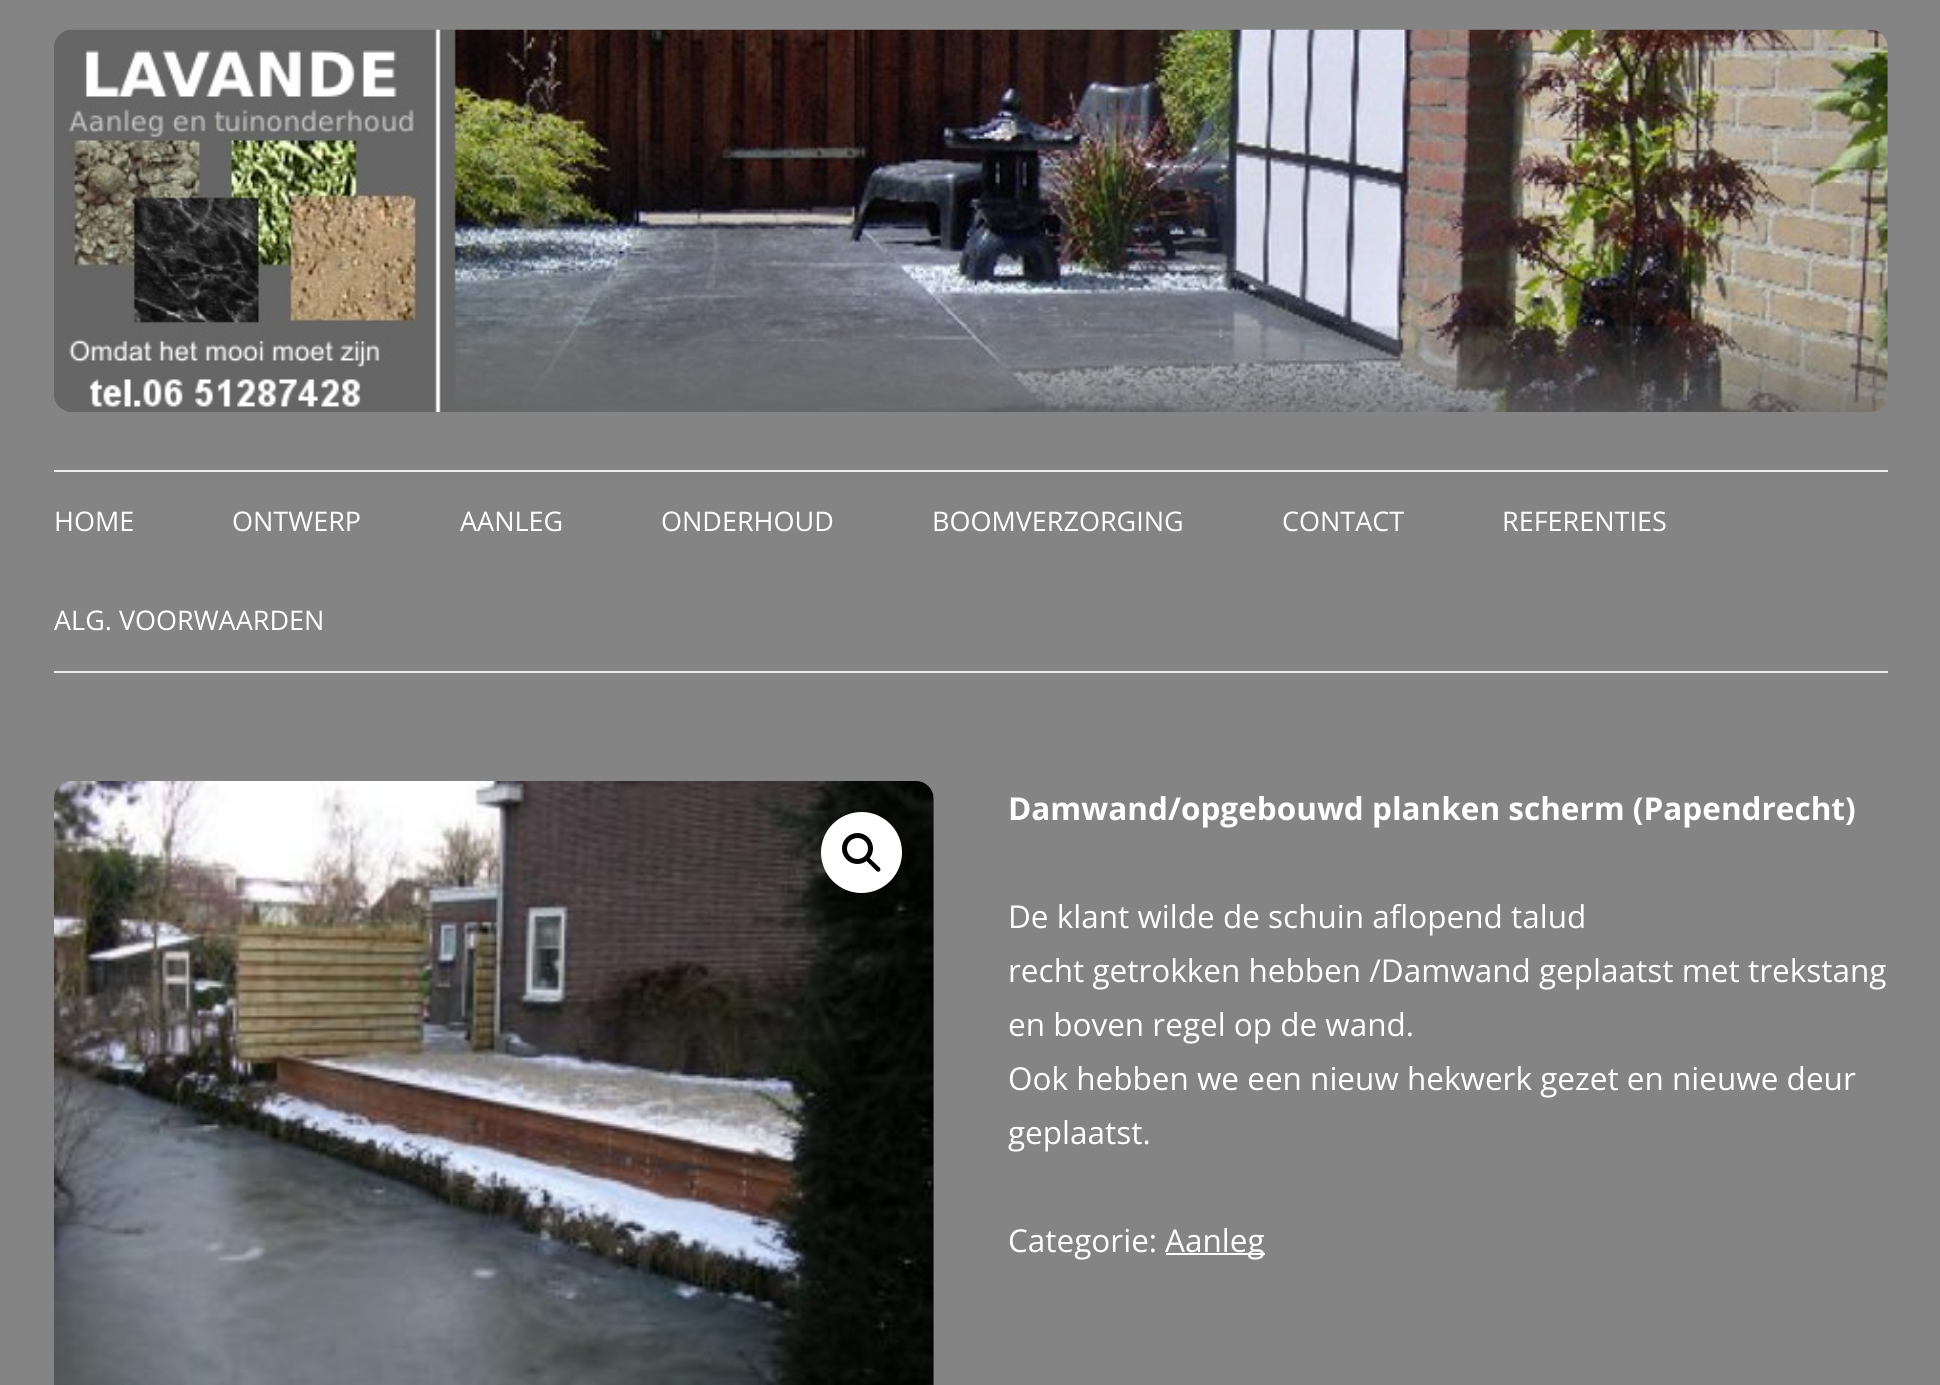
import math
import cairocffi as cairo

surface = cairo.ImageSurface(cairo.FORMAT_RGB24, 1940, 1385)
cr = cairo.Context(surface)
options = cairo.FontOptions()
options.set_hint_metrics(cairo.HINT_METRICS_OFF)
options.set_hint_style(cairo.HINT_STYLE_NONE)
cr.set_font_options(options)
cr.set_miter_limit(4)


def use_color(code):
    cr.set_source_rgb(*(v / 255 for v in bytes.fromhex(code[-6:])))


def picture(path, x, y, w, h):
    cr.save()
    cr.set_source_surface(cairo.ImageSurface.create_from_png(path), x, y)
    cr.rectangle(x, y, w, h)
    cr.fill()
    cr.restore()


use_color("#848484")
cr.paint()
picture("img1.png", 54, 29, 1834, 383)
use_color("#ededed")
cr.rectangle(54, 470, 1834, 2)
cr.fill()
cr.rectangle(54, 671, 1834, 2)
cr.fill()
cr.select_font_face("Open Sans")
cr.set_font_size(27)
use_color("#ffffff")
cr.move_to(54, 531)
cr.show_text("HOME")
cr.move_to(232, 531)
cr.show_text("ONTWERP")
cr.move_to(460, 531)
cr.show_text("AANLEG")
cr.move_to(661, 531)
cr.show_text("ONDERHOUD")
cr.move_to(932, 531)
cr.show_text("BOOMVERZORGING")
cr.move_to(1282, 531)
cr.show_text("CONTACT")
cr.move_to(1502, 531)
cr.show_text("REFERENTIES")
cr.move_to(54, 630)
cr.show_text("ALG. VOORWAARDEN")
picture("img2.png", 54, 781, 880, 604)
cr.arc(861.5, 852.5, 40.5, 0, 2 * math.pi)
cr.fill()
cr.arc(857.5, 848.5, 13, 0, 2 * math.pi)
use_color("#000000")
cr.set_line_width(5)
cr.stroke()
cr.new_path()
cr.move_to(867, 858.5)
cr.curve_to(868, 857.5, 869.5, 857.5, 870, 858.5)
cr.line_to(880, 868)
cr.curve_to(880.5, 869, 880.5, 870.5, 880, 871)
cr.curve_to(879, 872, 877.5, 872, 876.5, 871)
cr.line_to(867, 861.5)
cr.curve_to(866, 861, 866, 859.5, 867, 858.5)
cr.close_path()
cr.fill()
cr.select_font_face("Open Sans", cairo.FONT_SLANT_NORMAL, cairo.FONT_WEIGHT_BOLD)
cr.set_font_size(31.5)
use_color("#ffffff")
cr.move_to(1008, 820)
cr.show_text("Damwand/opgebouwd planken scherm (Papendrecht)")
cr.select_font_face("Open Sans")
cr.move_to(1008, 928)
cr.show_text("De klant wilde de schuin aflopend talud")
cr.move_to(1008, 982)
cr.show_text("recht getrokken hebben /Damwand geplaatst met trekstang")
cr.move_to(1008, 1036)
cr.show_text("en boven regel op de wand.")
cr.move_to(1008, 1090)
cr.show_text("Ook hebben we een nieuw hekwerk gezet en nieuwe deur")
cr.move_to(1008, 1144)
cr.show_text("geplaatst.")
cr.move_to(1008, 1252)
cr.show_text("Categorie:")
cr.rectangle(1166, 1253, 99, 2)
cr.fill()
cr.move_to(1165, 1252)
cr.show_text("Aanleg")
surface.write_to_png("result.png")
